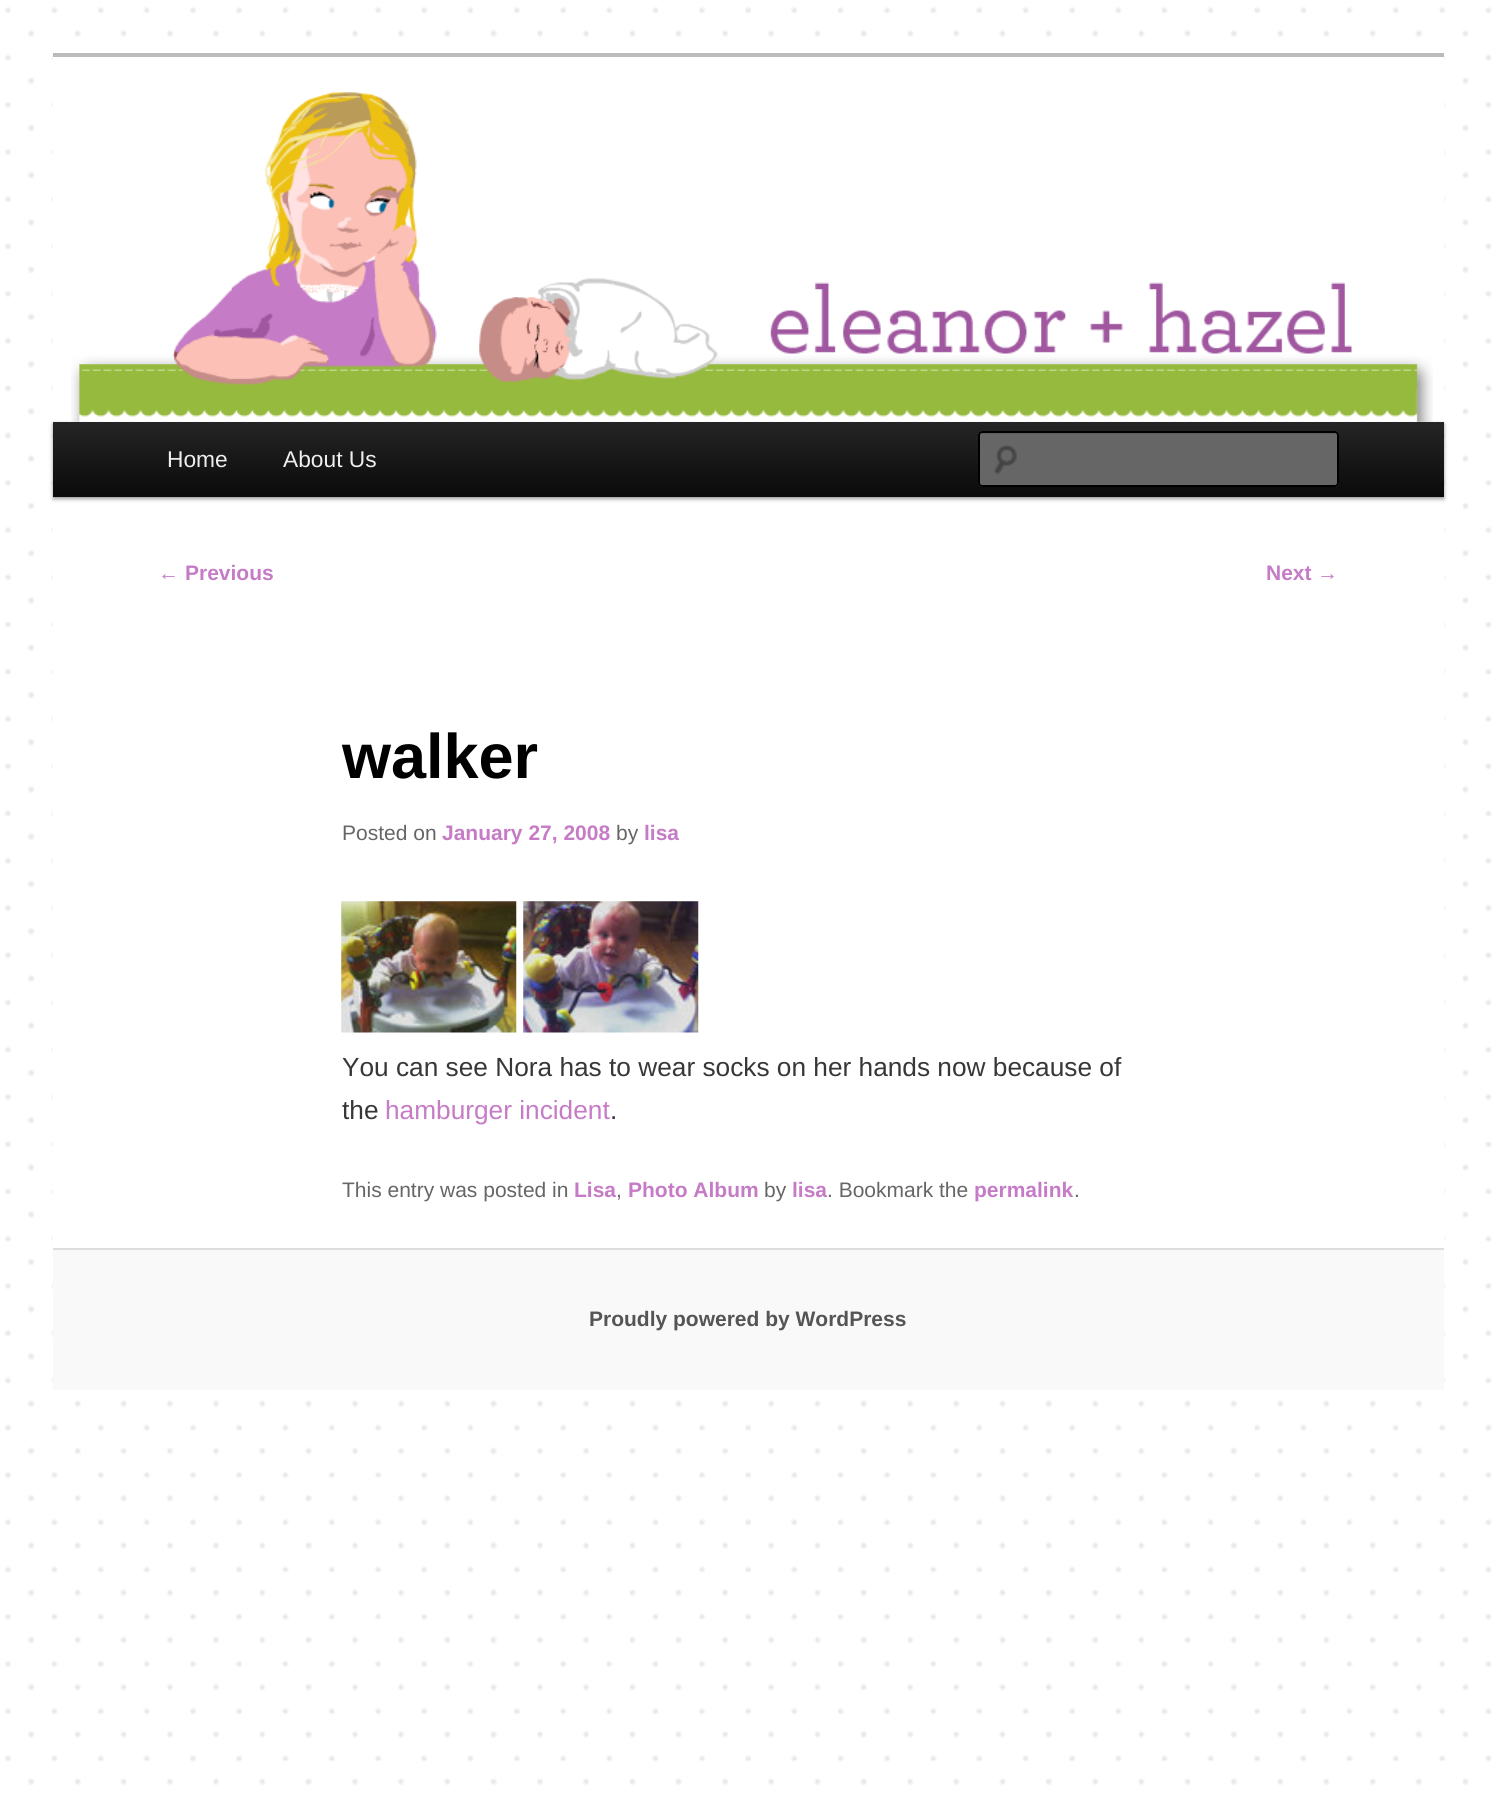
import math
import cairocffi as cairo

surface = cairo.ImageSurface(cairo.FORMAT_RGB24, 1496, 1796)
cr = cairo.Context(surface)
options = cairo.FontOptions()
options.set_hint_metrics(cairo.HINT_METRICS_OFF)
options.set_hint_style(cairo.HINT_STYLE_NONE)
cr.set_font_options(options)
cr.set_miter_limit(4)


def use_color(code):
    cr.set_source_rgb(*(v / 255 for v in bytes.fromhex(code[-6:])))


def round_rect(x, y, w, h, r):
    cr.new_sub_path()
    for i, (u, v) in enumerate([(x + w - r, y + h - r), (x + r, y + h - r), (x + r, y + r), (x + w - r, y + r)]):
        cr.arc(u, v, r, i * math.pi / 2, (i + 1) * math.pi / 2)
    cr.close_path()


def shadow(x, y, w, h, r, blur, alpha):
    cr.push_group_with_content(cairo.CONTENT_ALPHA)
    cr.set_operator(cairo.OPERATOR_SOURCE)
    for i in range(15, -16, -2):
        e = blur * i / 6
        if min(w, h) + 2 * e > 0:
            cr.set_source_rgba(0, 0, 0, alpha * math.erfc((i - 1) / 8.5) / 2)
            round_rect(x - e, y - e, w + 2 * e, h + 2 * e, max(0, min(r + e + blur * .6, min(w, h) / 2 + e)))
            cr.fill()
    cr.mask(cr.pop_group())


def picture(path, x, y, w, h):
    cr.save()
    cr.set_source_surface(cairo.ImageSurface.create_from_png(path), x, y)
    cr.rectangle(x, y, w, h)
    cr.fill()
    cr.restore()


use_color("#ffffff")
cr.paint()
picture("img1.png", 0, 0, 1496, 1796)
use_color("#ffffff")
cr.rectangle(53, 57, 1391, 1186)
cr.fill()
use_color("#bbbbbb")
cr.rectangle(53, 53, 1391, 4)
cr.fill()
use_color("#000000")
shadow(53, 424, 1391, 75, 0, 2, 0.4)
picture("img2.png", 71, 92, 1362, 330)
gradient = cairo.LinearGradient(748, 422, 748, 497)
gradient.add_color_stop_rgba(0, 0.145, 0.145, 0.145, 1)
gradient.add_color_stop_rgba(1, 0.039, 0.039, 0.039, 1)
cr.set_source(gradient)
cr.rectangle(53, 422, 1391, 75)
cr.fill()
cr.select_font_face("Liberation Sans")
cr.set_font_size(22.75)
use_color("#eeeeee")
cr.move_to(167, 467)
cr.show_text("Home")
cr.move_to(283, 467)
cr.show_text("About Us")
use_color("#666666")
round_rect(978, 431, 361, 56, 4)
cr.fill()
picture("img3.png", 994, 445, 23, 30)
use_color("#5c5c5c")
cr.new_path()
cr.move_to(982, 434)
cr.line_to(1335, 434)
cr.curve_to(1336, 434, 1337, 435, 1337, 436)
cr.line_to(1337, 434)
cr.curve_to(1337, 433, 1336, 432, 1335, 432)
cr.line_to(982, 432)
cr.curve_to(981, 432, 980, 433, 980, 434)
cr.line_to(980, 436)
cr.curve_to(980, 435, 981, 434, 982, 434)
cr.close_path()
cr.fill()
round_rect(979, 432, 359, 54, 3)
use_color("#000000")
cr.stroke()
cr.set_font_size(21)
use_color("#c67bc6")
cr.move_to(158, 580)
cr.show_text("←")
cr.select_font_face("Liberation Sans", cairo.FONT_SLANT_NORMAL, cairo.FONT_WEIGHT_BOLD)
cr.move_to(185, 580)
cr.show_text("Previous")
cr.move_to(1266, 580)
cr.show_text("Next")
cr.select_font_face("Liberation Sans")
cr.move_to(1317, 580)
cr.show_text("→")
cr.select_font_face("Liberation Sans", cairo.FONT_SLANT_NORMAL, cairo.FONT_WEIGHT_BOLD)
cr.set_font_size(63)
use_color("#000000")
cr.move_to(342, 778)
cr.show_text("walker")
cr.select_font_face("Liberation Sans")
cr.set_font_size(21)
use_color("#666666")
cr.move_to(342, 840)
cr.show_text("Posted on")
cr.select_font_face("Liberation Sans", cairo.FONT_SLANT_NORMAL, cairo.FONT_WEIGHT_BOLD)
use_color("#c67bc6")
cr.move_to(442, 840)
cr.show_text("January 27, 2008")
cr.select_font_face("Liberation Sans")
use_color("#666666")
cr.move_to(616, 840)
cr.show_text("by")
cr.select_font_face("Liberation Sans", cairo.FONT_SLANT_NORMAL, cairo.FONT_WEIGHT_BOLD)
use_color("#c67bc6")
cr.move_to(644, 840)
cr.show_text("lisa")
picture("img4.png", 341, 901, 176, 132)
picture("img5.png", 523, 901, 176, 132)
cr.select_font_face("Liberation Sans")
cr.set_font_size(26.25)
use_color("#373737")
cr.move_to(342, 1076)
cr.show_text("You can see Nora has to wear socks on her hands now because of")
cr.move_to(342, 1119)
cr.show_text("the")
use_color("#c67bc6")
cr.move_to(385, 1119)
cr.show_text("hamburger incident")
use_color("#373737")
cr.move_to(610, 1119)
cr.show_text(".")
cr.set_font_size(21)
use_color("#666666")
cr.move_to(342, 1197)
cr.show_text("This entry was posted in")
cr.select_font_face("Liberation Sans", cairo.FONT_SLANT_NORMAL, cairo.FONT_WEIGHT_BOLD)
use_color("#c67bc6")
cr.move_to(574, 1197)
cr.show_text("Lisa")
cr.select_font_face("Liberation Sans")
use_color("#666666")
cr.move_to(616, 1197)
cr.show_text(",")
cr.select_font_face("Liberation Sans", cairo.FONT_SLANT_NORMAL, cairo.FONT_WEIGHT_BOLD)
use_color("#c67bc6")
cr.move_to(628, 1197)
cr.show_text("Photo Album")
cr.select_font_face("Liberation Sans")
use_color("#666666")
cr.move_to(764, 1197)
cr.show_text("by")
cr.select_font_face("Liberation Sans", cairo.FONT_SLANT_NORMAL, cairo.FONT_WEIGHT_BOLD)
use_color("#c67bc6")
cr.move_to(792, 1197)
cr.show_text("lisa")
cr.select_font_face("Liberation Sans")
use_color("#666666")
cr.move_to(827, 1197)
cr.show_text(". Bookmark the")
cr.select_font_face("Liberation Sans", cairo.FONT_SLANT_NORMAL, cairo.FONT_WEIGHT_BOLD)
use_color("#c67bc6")
cr.move_to(974, 1197)
cr.show_text("permalink")
cr.select_font_face("Liberation Sans")
use_color("#666666")
cr.move_to(1074, 1197)
cr.show_text(".")
use_color("#f9f9f9")
cr.rectangle(53, 1250, 1391, 140)
cr.fill()
use_color("#dddddd")
cr.rectangle(53, 1248, 1391, 2)
cr.fill()
cr.select_font_face("Liberation Sans", cairo.FONT_SLANT_NORMAL, cairo.FONT_WEIGHT_BOLD)
use_color("#555555")
cr.move_to(589, 1326)
cr.show_text("Proudly powered by WordPress")
surface.write_to_png("result.png")
